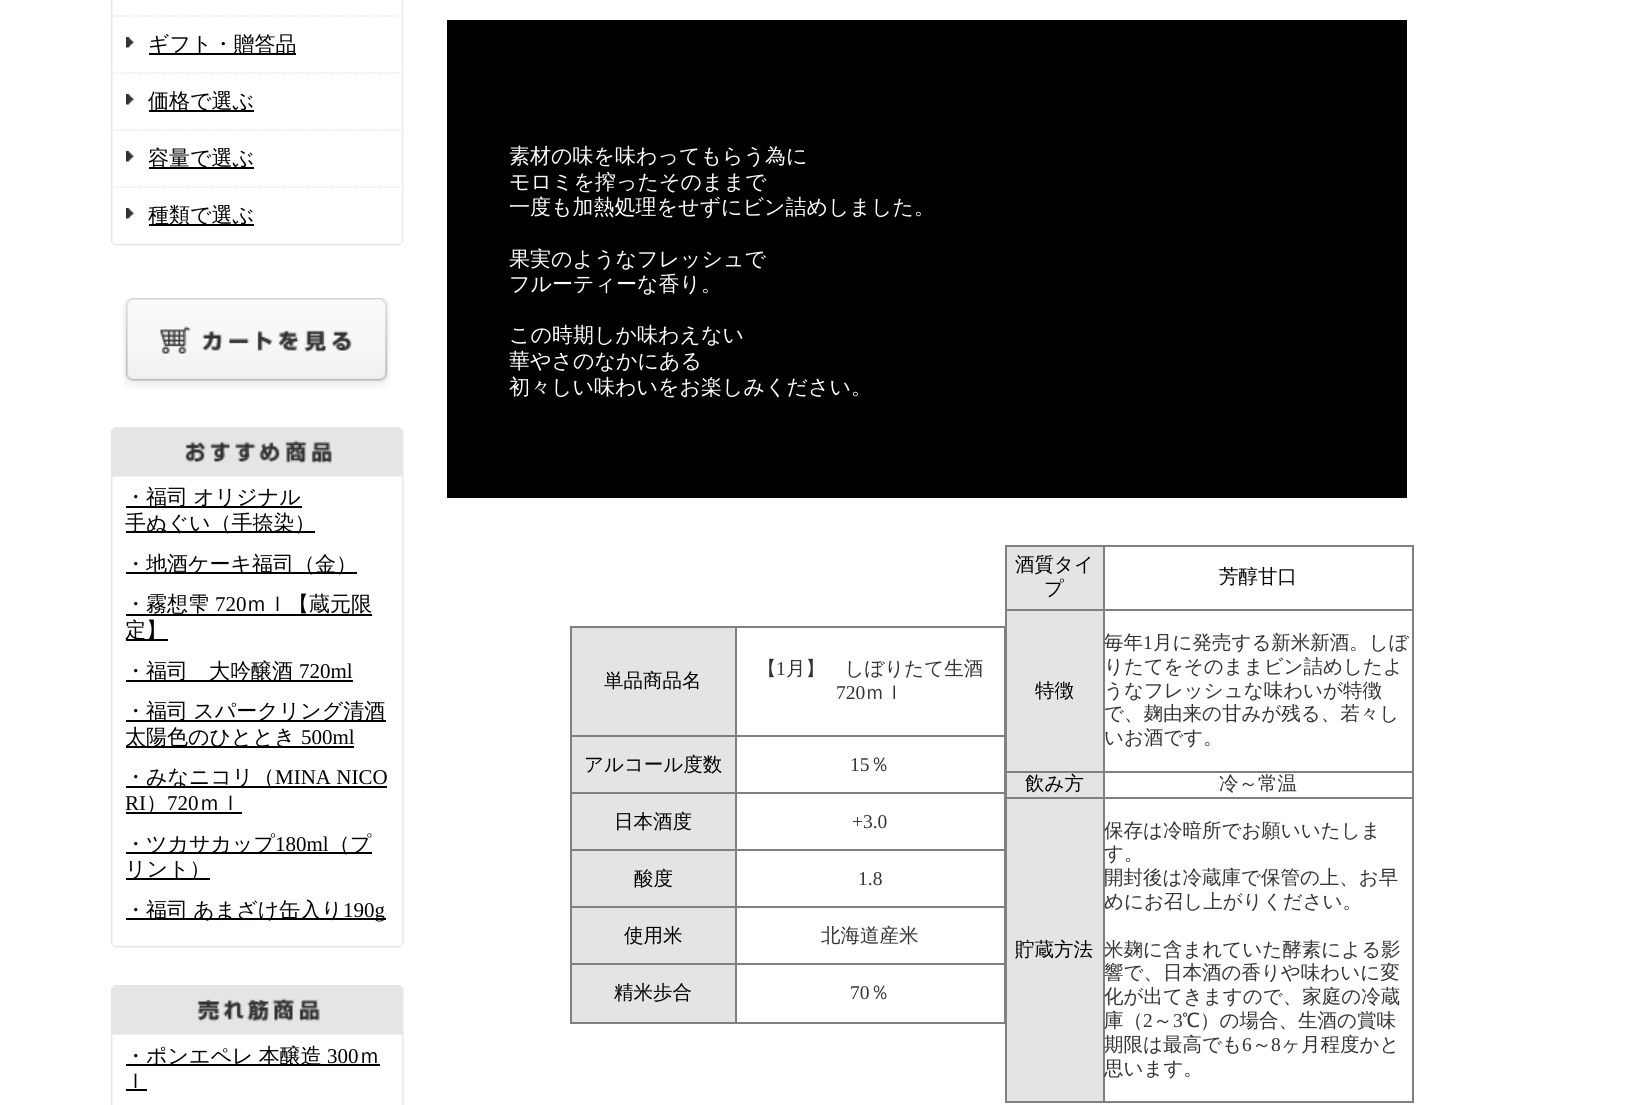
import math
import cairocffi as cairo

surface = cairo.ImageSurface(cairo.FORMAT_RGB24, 1645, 1105)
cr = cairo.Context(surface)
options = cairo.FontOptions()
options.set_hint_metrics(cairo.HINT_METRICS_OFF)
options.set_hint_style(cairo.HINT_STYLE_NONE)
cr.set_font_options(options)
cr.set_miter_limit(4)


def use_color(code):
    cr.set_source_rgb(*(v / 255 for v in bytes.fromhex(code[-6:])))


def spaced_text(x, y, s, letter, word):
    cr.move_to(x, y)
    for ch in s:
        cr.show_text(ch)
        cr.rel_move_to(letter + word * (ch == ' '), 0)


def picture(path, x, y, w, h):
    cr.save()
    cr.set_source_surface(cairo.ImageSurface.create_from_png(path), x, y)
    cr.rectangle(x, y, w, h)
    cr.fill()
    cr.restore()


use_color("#ffffff")
cr.paint()
picture("img1.png", 111, 0, 293, 15)
picture("img2.png", 111, 14, 293, 58)
cr.new_path()
cr.move_to(111, 16)
cr.line_to(403.5, 16)
use_color("#e6e6e6")
cr.set_line_width(1.5)
cr.set_dash([1.5, 1.5])
cr.stroke()
picture("img3.png", 126, 37, 8, 11)
use_color("#000000")
cr.rectangle(149, 53, 147, 2)
cr.fill()
cr.select_font_face("WenQuanYi Zen Hei Medium")
cr.set_font_size(21)
cr.move_to(148, 51)
cr.show_text("ギフト・贈答品")
picture("img2.png", 111, 71, 293, 58)
cr.new_path()
cr.move_to(111, 73)
cr.line_to(403.5, 73)
use_color("#e6e6e6")
cr.stroke()
picture("img3.png", 126, 94, 8, 11)
use_color("#000000")
cr.rectangle(149, 110, 105, 2)
cr.fill()
cr.move_to(148, 108)
cr.show_text("価格で選ぶ")
picture("img2.png", 111, 128, 293, 58)
cr.new_path()
cr.move_to(111, 130)
cr.line_to(403.5, 130)
use_color("#e6e6e6")
cr.stroke()
picture("img3.png", 126, 151, 8, 11)
use_color("#000000")
cr.rectangle(149, 167, 105, 2)
cr.fill()
cr.move_to(148, 165)
cr.show_text("容量で選ぶ")
picture("img2.png", 111, 185, 293, 58)
cr.new_path()
cr.move_to(111, 187)
cr.line_to(403.5, 187)
use_color("#e6e6e6")
cr.stroke()
picture("img3.png", 126, 208, 8, 11)
use_color("#000000")
cr.rectangle(149, 224, 105, 2)
cr.fill()
cr.move_to(148, 222)
cr.show_text("種類で選ぶ")
picture("img4.png", 112, 243, 291, 3)
picture("img5.png", 123, 298, 267, 91)
picture("img7.png", 111, 476, 293, 469)
picture("img6.png", 111, 427, 293, 50)
cr.rectangle(126, 506, 176, 2)
cr.fill()
spaced_text(125, 504, "・福司 オリジナル", 0, -1)
cr.rectangle(126, 531, 189, 2)
cr.fill()
cr.move_to(125, 530)
cr.show_text("手ぬぐい（手捺染）")
cr.rectangle(126, 572, 231, 2)
cr.fill()
cr.move_to(125, 571)
cr.show_text("・地酒ケーキ福司（金）")
cr.move_to(125, 611)
cr.show_text("・霧想雫")
cr.select_font_face("Liberation Serif")
cr.move_to(215, 611)
cr.show_text("720")
cr.rectangle(126, 614, 246, 2)
cr.fill()
cr.select_font_face("WenQuanYi Zen Hei Medium")
cr.move_to(246, 611)
cr.show_text("ｍｌ【蔵元限")
cr.rectangle(126, 639, 42, 2)
cr.fill()
cr.move_to(125, 637)
cr.show_text("定】")
cr.rectangle(126, 680, 227, 2)
cr.fill()
cr.move_to(125, 678)
cr.show_text("・福司　大吟醸酒")
cr.select_font_face("Liberation Serif")
cr.move_to(299, 678)
cr.show_text("720ml")
cr.rectangle(126, 720, 260, 2)
cr.fill()
cr.select_font_face("WenQuanYi Zen Hei Medium")
spaced_text(125, 718, "・福司 スパークリング清酒", 0, -1)
cr.rectangle(126, 746, 228, 2)
cr.fill()
cr.move_to(125, 744)
cr.show_text("太陽色のひととき")
cr.select_font_face("Liberation Serif")
cr.move_to(301, 744)
cr.show_text("500ml")
cr.rectangle(126, 786, 261, 2)
cr.fill()
cr.select_font_face("WenQuanYi Zen Hei Medium")
cr.move_to(125, 784)
cr.show_text("・みなニコリ（")
cr.select_font_face("Liberation Serif")
cr.move_to(275, 784)
cr.show_text("MINA NICO")
cr.move_to(125, 810)
cr.show_text("RI")
cr.rectangle(126, 812, 116, 2)
cr.fill()
cr.select_font_face("WenQuanYi Zen Hei Medium")
cr.move_to(146, 810)
cr.show_text("）")
cr.select_font_face("Liberation Serif")
cr.move_to(167, 810)
cr.show_text("720")
cr.select_font_face("WenQuanYi Zen Hei Medium")
cr.move_to(199, 810)
cr.show_text("ｍｌ")
cr.rectangle(126, 852, 246, 2)
cr.fill()
cr.move_to(125, 851)
cr.show_text("・ツカサカップ")
cr.select_font_face("Liberation Serif")
cr.move_to(275, 851)
cr.show_text("180ml")
cr.select_font_face("WenQuanYi Zen Hei Medium")
cr.move_to(329, 851)
cr.show_text("（プ")
cr.rectangle(126, 878, 84, 2)
cr.fill()
cr.move_to(125, 876)
cr.show_text("リント）")
cr.rectangle(126, 918, 260, 2)
cr.fill()
spaced_text(125, 917, "・福司 あまざけ缶入り", 0, -1)
cr.select_font_face("Liberation Serif")
cr.move_to(343, 917)
cr.show_text("190g")
picture("img8.png", 111, 944, 292, 4)
picture("img10.png", 111, 1034, 293, 71)
picture("img9.png", 111, 985, 293, 50)
cr.rectangle(126, 1064, 254, 2)
cr.fill()
cr.select_font_face("WenQuanYi Zen Hei Medium")
spaced_text(125, 1063, "・ポンエペレ 本醸造", 0, -1)
cr.select_font_face("Liberation Serif")
cr.move_to(327, 1063)
cr.show_text("300")
cr.select_font_face("WenQuanYi Zen Hei Medium")
cr.move_to(359, 1063)
cr.show_text("ｍ")
cr.move_to(125, 1088)
cr.show_text("ｌ")
cr.rectangle(126, 1089, 21, 2)
cr.fill()
cr.rectangle(447, 20, 960, 478)
cr.fill()
use_color("#ffffff")
cr.move_to(509, 163)
cr.show_text("素材の味を味わってもらう為に")
cr.move_to(509, 189)
cr.show_text("モロミを搾ったそのままで")
cr.move_to(509, 214)
cr.show_text("一度も加熱処理をせずにビン詰めしました。")
cr.move_to(509, 266)
cr.show_text("果実のようなフレッシュで")
cr.move_to(509, 291)
cr.show_text("フルーティーな香り。")
cr.move_to(509, 342)
cr.show_text("この時期しか味わえない")
cr.move_to(509, 368)
cr.show_text("華やさのなかにある")
cr.move_to(509, 394)
cr.show_text("初々しい味わいをお楽しみください。")
use_color("#808080")
cr.rectangle(570, 626, 435, 2)
cr.fill()
cr.rectangle(1004, 626, 1, 397)
cr.fill()
cr.rectangle(570, 1022, 435, 2)
cr.fill()
cr.rectangle(570, 626, 2, 397)
cr.fill()
use_color("#e4e4e4")
cr.rectangle(572, 628, 163, 107)
cr.fill()
cr.set_font_size(19.5)
use_color("#000000")
cr.move_to(604, 687)
cr.show_text("単品商品名")
use_color("#808080")
cr.rectangle(735, 735, 270, 2)
cr.fill()
cr.rectangle(735, 792, 270, 2)
cr.fill()
cr.rectangle(735, 849, 270, 2)
cr.fill()
cr.rectangle(735, 906, 270, 2)
cr.fill()
cr.rectangle(735, 963, 270, 2)
cr.fill()
cr.rectangle(735, 963, 2, 60)
cr.fill()
cr.rectangle(570, 963, 167, 2)
cr.fill()
cr.rectangle(735, 906, 2, 59)
cr.fill()
cr.rectangle(570, 906, 167, 2)
cr.fill()
cr.rectangle(735, 849, 2, 59)
cr.fill()
cr.rectangle(570, 849, 167, 2)
cr.fill()
cr.rectangle(735, 792, 2, 59)
cr.fill()
cr.rectangle(570, 792, 167, 2)
cr.fill()
cr.rectangle(735, 735, 2, 59)
cr.fill()
cr.rectangle(570, 735, 167, 2)
cr.fill()
cr.rectangle(735, 626, 2, 111)
cr.fill()
use_color("#333333")
cr.move_to(757, 675)
cr.show_text("【")
cr.select_font_face("Liberation Serif")
cr.move_to(776, 675)
cr.show_text("1")
cr.select_font_face("WenQuanYi Zen Hei Medium")
cr.move_to(786, 675)
cr.show_text("月】　しぼりたて生酒")
cr.select_font_face("Liberation Serif")
cr.move_to(836, 699)
cr.show_text("720")
cr.select_font_face("WenQuanYi Zen Hei Medium")
cr.move_to(865, 699)
cr.show_text("ｍｌ")
use_color("#e4e4e4")
cr.rectangle(572, 737, 163, 55)
cr.fill()
use_color("#000000")
cr.move_to(584, 771)
cr.show_text("アルコール度数")
cr.select_font_face("Liberation Serif")
use_color("#333333")
cr.move_to(850, 771)
cr.show_text("15")
cr.select_font_face("WenQuanYi Zen Hei Medium")
cr.move_to(870, 771)
cr.show_text("％")
use_color("#e4e4e4")
cr.rectangle(572, 794, 163, 55)
cr.fill()
use_color("#000000")
cr.move_to(614, 828)
cr.show_text("日本酒度")
cr.select_font_face("Liberation Serif")
use_color("#333333")
cr.move_to(852, 828)
cr.show_text("+3.0")
use_color("#e4e4e4")
cr.rectangle(572, 851, 163, 55)
cr.fill()
cr.select_font_face("WenQuanYi Zen Hei Medium")
use_color("#000000")
cr.move_to(634, 885)
cr.show_text("酸度")
cr.select_font_face("Liberation Serif")
use_color("#333333")
cr.move_to(858, 885)
cr.show_text("1.8")
use_color("#e4e4e4")
cr.rectangle(572, 908, 163, 55)
cr.fill()
cr.select_font_face("WenQuanYi Zen Hei Medium")
use_color("#000000")
cr.move_to(624, 942)
cr.show_text("使用米")
use_color("#333333")
cr.move_to(821, 942)
cr.show_text("北海道産米")
use_color("#e4e4e4")
cr.rectangle(572, 965, 163, 57)
cr.fill()
use_color("#000000")
cr.move_to(614, 999)
cr.show_text("精米歩合")
cr.select_font_face("Liberation Serif")
use_color("#333333")
cr.move_to(850, 999)
cr.show_text("70")
cr.select_font_face("WenQuanYi Zen Hei Medium")
cr.move_to(870, 999)
cr.show_text("％")
use_color("#808080")
cr.rectangle(1005, 545, 408, 2)
cr.fill()
cr.rectangle(1412, 545, 2, 558)
cr.fill()
cr.rectangle(1005, 1101, 408, 2)
cr.fill()
cr.rectangle(1005, 545, 2, 558)
cr.fill()
use_color("#e4e4e4")
cr.rectangle(1007, 547, 96, 62)
cr.fill()
use_color("#000000")
cr.move_to(1015, 571)
cr.show_text("酒質タイ")
cr.move_to(1044, 595)
cr.show_text("プ")
use_color("#808080")
cr.rectangle(1103, 609, 310, 2)
cr.fill()
cr.rectangle(1103, 771, 310, 2)
cr.fill()
cr.rectangle(1103, 797, 310, 2)
cr.fill()
cr.rectangle(1103, 797, 2, 306)
cr.fill()
cr.rectangle(1005, 797, 99, 2)
cr.fill()
cr.rectangle(1103, 771, 2, 27)
cr.fill()
cr.rectangle(1005, 771, 99, 2)
cr.fill()
cr.rectangle(1103, 609, 2, 164)
cr.fill()
cr.rectangle(1005, 609, 99, 2)
cr.fill()
cr.rectangle(1103, 545, 2, 66)
cr.fill()
use_color("#000000")
cr.move_to(1219, 583)
cr.show_text("芳醇甘口")
use_color("#e4e4e4")
cr.rectangle(1007, 611, 96, 160)
cr.fill()
use_color("#000000")
cr.move_to(1035, 697)
cr.show_text("特徴")
use_color("#333333")
cr.move_to(1104, 649)
cr.show_text("毎年")
cr.select_font_face("Liberation Serif")
cr.move_to(1143, 649)
cr.show_text("1")
cr.select_font_face("WenQuanYi Zen Hei Medium")
cr.move_to(1153, 649)
cr.show_text("月に発売する新米新酒。しぼ")
cr.move_to(1104, 673)
cr.show_text("りたてをそのままビン詰めしたよ")
cr.move_to(1104, 697)
cr.show_text("うなフレッシュな味わいが特徴")
cr.move_to(1104, 720)
cr.show_text("で、麹由来の甘みが残る、若々し")
cr.move_to(1104, 744)
cr.show_text("いお酒です。")
use_color("#e4e4e4")
cr.rectangle(1007, 773, 96, 24)
cr.fill()
use_color("#000000")
cr.move_to(1025, 790)
cr.show_text("飲み方")
use_color("#333333")
cr.move_to(1219, 790)
cr.show_text("冷～常温")
use_color("#e4e4e4")
cr.rectangle(1007, 799, 96, 302)
cr.fill()
use_color("#000000")
cr.move_to(1015, 956)
cr.show_text("貯蔵方法")
use_color("#333333")
cr.move_to(1104, 837)
cr.show_text("保存は冷暗所でお願いいたしま")
cr.move_to(1104, 860)
cr.show_text("す。")
cr.move_to(1104, 884)
cr.show_text("開封後は冷蔵庫で保管の上、お早")
cr.move_to(1104, 908)
cr.show_text("めにお召し上がりください。")
cr.move_to(1104, 956)
cr.show_text("米麹に含まれていた酵素による影")
cr.move_to(1104, 979)
cr.show_text("響で、日本酒の香りや味わいに変")
cr.move_to(1104, 1003)
cr.show_text("化が出てきますので、家庭の冷蔵")
cr.move_to(1104, 1027)
cr.show_text("庫（")
cr.select_font_face("Liberation Serif")
cr.move_to(1143, 1027)
cr.show_text("2")
cr.select_font_face("WenQuanYi Zen Hei Medium")
cr.move_to(1153, 1027)
cr.show_text("～")
cr.select_font_face("Liberation Serif")
cr.move_to(1173, 1027)
cr.show_text("3")
cr.select_font_face("WenQuanYi Zen Hei Medium")
cr.move_to(1182, 1027)
cr.show_text("℃）の場合、生酒の賞味")
cr.move_to(1104, 1051)
cr.show_text("期限は最高でも")
cr.select_font_face("Liberation Serif")
cr.move_to(1242, 1051)
cr.show_text("6")
cr.select_font_face("WenQuanYi Zen Hei Medium")
cr.move_to(1252, 1051)
cr.show_text("～")
cr.select_font_face("Liberation Serif")
cr.move_to(1271, 1051)
cr.show_text("8")
cr.select_font_face("WenQuanYi Zen Hei Medium")
cr.move_to(1281, 1051)
cr.show_text("ヶ月程度かと")
cr.move_to(1104, 1075)
cr.show_text("思います。")
surface.write_to_png("result.png")
